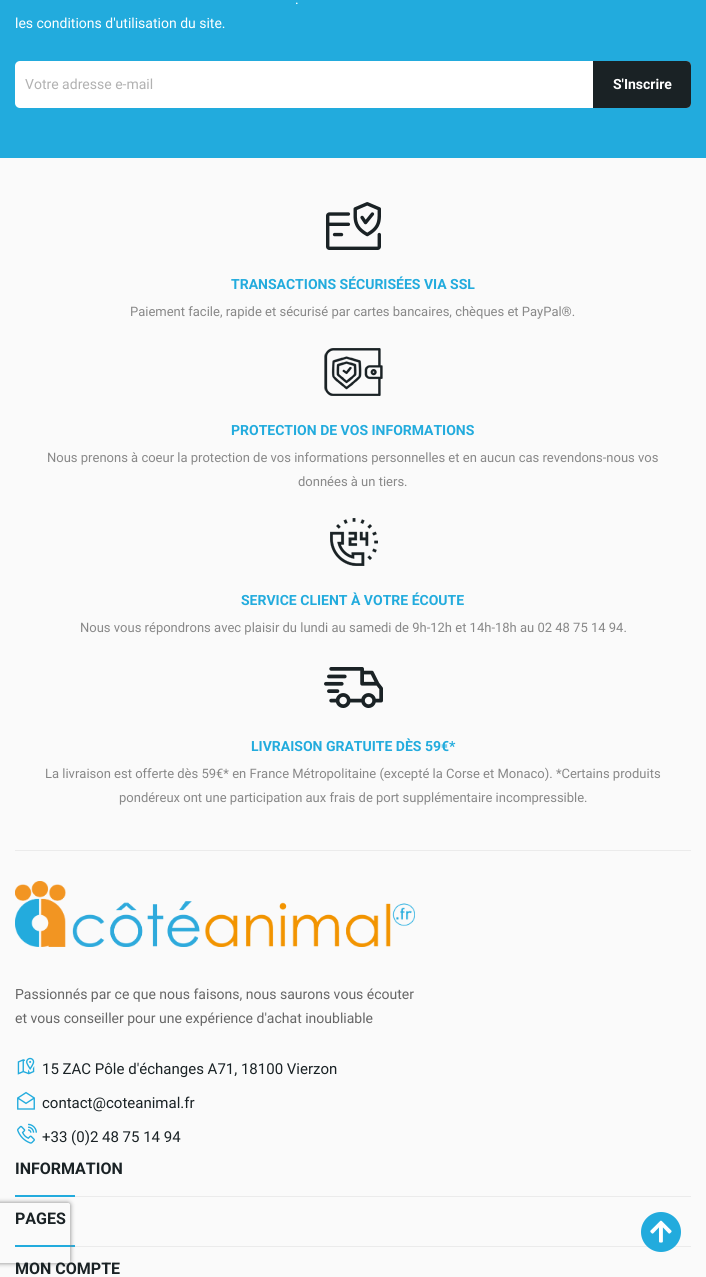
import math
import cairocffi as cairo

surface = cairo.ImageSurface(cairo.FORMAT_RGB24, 706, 1277)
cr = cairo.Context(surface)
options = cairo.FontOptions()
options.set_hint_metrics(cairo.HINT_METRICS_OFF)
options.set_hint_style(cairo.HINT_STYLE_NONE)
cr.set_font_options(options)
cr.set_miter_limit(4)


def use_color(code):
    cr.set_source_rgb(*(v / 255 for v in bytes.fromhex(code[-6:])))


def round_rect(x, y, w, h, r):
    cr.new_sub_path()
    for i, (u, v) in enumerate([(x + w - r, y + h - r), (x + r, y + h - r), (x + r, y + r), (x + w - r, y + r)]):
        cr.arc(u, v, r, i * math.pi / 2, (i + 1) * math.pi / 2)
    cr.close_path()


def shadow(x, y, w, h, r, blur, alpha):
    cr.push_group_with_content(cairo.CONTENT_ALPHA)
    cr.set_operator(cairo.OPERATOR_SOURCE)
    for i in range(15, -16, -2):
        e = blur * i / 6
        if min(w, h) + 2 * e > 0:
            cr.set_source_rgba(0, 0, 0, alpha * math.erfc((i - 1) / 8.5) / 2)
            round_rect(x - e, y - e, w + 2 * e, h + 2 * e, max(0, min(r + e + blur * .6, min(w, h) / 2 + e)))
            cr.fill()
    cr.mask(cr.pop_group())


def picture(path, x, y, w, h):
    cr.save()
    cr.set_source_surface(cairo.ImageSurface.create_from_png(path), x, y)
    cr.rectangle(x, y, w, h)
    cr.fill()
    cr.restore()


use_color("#fafafa")
cr.paint()
use_color("#22abdd")
cr.rectangle(0, 0, 706, 158)
cr.fill()
cr.select_font_face("Roboto")
cr.set_font_size(14)
use_color("#ffffff")
cr.move_to(295, 4)
cr.show_text(".")
cr.move_to(15, 28)
cr.show_text("les conditions d'utilisation du site.")
round_rect(15, 61, 676, 47, 5)
cr.fill()
use_color("#b1b1b1")
cr.move_to(25, 89)
cr.show_text("Votre adresse e-mail")
use_color("#1a2225")
cr.new_path()
cr.move_to(593, 61)
cr.line_to(686, 61)
cr.curve_to(689, 61, 691, 63, 691, 66)
cr.line_to(691, 103)
cr.curve_to(691, 106, 689, 108, 686, 108)
cr.line_to(593, 108)
cr.close_path()
cr.fill()
cr.select_font_face("Roboto", cairo.FONT_SLANT_NORMAL, cairo.FONT_WEIGHT_BOLD)
use_color("#ffffff")
cr.move_to(613, 89)
cr.show_text("S'Inscrire")
use_color("#ebebeb")
cr.rectangle(15, 850, 676, 1)
cr.fill()
picture("img1.png", 326, 202, 55, 48)
use_color("#22abdd")
cr.move_to(231, 289)
cr.show_text("TRANSACTIONS SÉCURISÉES VIA SSL")
cr.select_font_face("Roboto")
cr.set_font_size(13)
use_color("#888888")
cr.move_to(130, 316)
cr.show_text("Paiement facile, rapide et sécurisé par cartes bancaires, chèques et PayPal®.")
picture("img2.png", 324, 348, 59, 48)
cr.select_font_face("Roboto", cairo.FONT_SLANT_NORMAL, cairo.FONT_WEIGHT_BOLD)
cr.set_font_size(14)
use_color("#22abdd")
cr.move_to(231, 435)
cr.show_text("PROTECTION DE VOS INFORMATIONS")
cr.select_font_face("Roboto")
cr.set_font_size(13)
use_color("#888888")
cr.move_to(47, 462)
cr.show_text("Nous prenons à coeur la protection de vos informations personnelles et en aucun cas revendons-nous vos")
cr.move_to(298, 486)
cr.show_text("données à un tiers.")
picture("img3.png", 330, 518, 48, 48)
cr.select_font_face("Roboto", cairo.FONT_SLANT_NORMAL, cairo.FONT_WEIGHT_BOLD)
cr.set_font_size(14)
use_color("#22abdd")
cr.move_to(241, 605)
cr.show_text("SERVICE CLIENT À VOTRE ÉCOUTE")
cr.select_font_face("Roboto")
cr.set_font_size(13)
use_color("#888888")
cr.move_to(80, 632)
cr.show_text("Nous vous répondrons avec plaisir du lundi au samedi de 9h-12h et 14h-18h au 02 48 75 14 94.")
picture("img4.png", 324, 667, 59, 41)
cr.select_font_face("Roboto", cairo.FONT_SLANT_NORMAL, cairo.FONT_WEIGHT_BOLD)
cr.set_font_size(14)
use_color("#22abdd")
cr.move_to(251, 751)
cr.show_text("LIVRAISON GRATUITE DÈS 59€*")
cr.select_font_face("Roboto")
cr.set_font_size(13)
use_color("#888888")
cr.move_to(45, 778)
cr.show_text("La livraison est offerte dès 59€* en France Métropolitaine (excepté la Corse et Monaco). *Certains produits")
cr.move_to(119, 802)
cr.show_text("pondéreux ont une participation aux frais de port supplémentaire incompressible.")
picture("img5.png", 15, 881, 400, 66)
cr.set_font_size(14)
use_color("#666666")
cr.move_to(15, 999)
cr.show_text("Passionnés par ce que nous faisons, nous saurons vous écouter")
cr.move_to(15, 1023)
cr.show_text("et vous conseiller pour une expérience d'achat inoubliable")
picture("img6.png", 17, 1057, 18, 18)
cr.set_font_size(15)
use_color("#1a2225")
cr.move_to(42, 1074)
cr.show_text("15 ZAC Pôle d'échanges A71, 18100 Vierzon")
picture("img7.png", 17, 1091, 18, 19)
cr.move_to(42, 1108)
cr.show_text("contact@coteanimal.fr")
picture("img8.png", 17, 1123, 20, 21)
cr.move_to(42, 1142)
cr.show_text("+33 (0)2 48 75 14 94")
use_color("#ebebeb")
cr.rectangle(75, 1196, 616, 1)
cr.fill()
cr.select_font_face("Roboto", cairo.FONT_SLANT_NORMAL, cairo.FONT_WEIGHT_BOLD)
cr.set_font_size(16)
use_color("#1a2225")
cr.move_to(15, 1174)
cr.show_text("INFORMATION")
use_color("#22abdd")
cr.rectangle(15, 1195, 60, 2)
cr.fill()
use_color("#ebebeb")
cr.rectangle(75, 1246, 616, 1)
cr.fill()
use_color("#22abdd")
cr.rectangle(15, 1245, 60, 2)
cr.fill()
cr.save()
cr.set_fill_rule(cairo.FILL_RULE_EVEN_ODD)
cr.new_path()
cr.move_to(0, 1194)
cr.line_to(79, 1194)
cr.line_to(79, 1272)
cr.line_to(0, 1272)
cr.close_path()
cr.move_to(-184, 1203)
cr.line_to(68, 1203)
cr.curve_to(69, 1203, 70, 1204, 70, 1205)
cr.line_to(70, 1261)
cr.curve_to(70, 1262, 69, 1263, 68, 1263)
cr.line_to(-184, 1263)
cr.curve_to(-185, 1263, -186, 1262, -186, 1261)
cr.line_to(-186, 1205)
cr.curve_to(-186, 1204, -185, 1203, -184, 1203)
cr.close_path()
cr.clip()
use_color("#808080")
shadow(-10, 1203, 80, 60, 2, 2.5, 1)
cr.restore()
use_color("#1a2225")
cr.move_to(15, 1224)
cr.show_text("PAGES")
cr.move_to(15, 1274)
cr.show_text("MON COMPTE")
use_color("#22abdd")
cr.new_path()
cr.arc(661, 1232, 20, 0, 2 * math.pi)
cr.fill()
picture("img9.png", 650, 1220, 22, 23)
surface.write_to_png("result.png")
